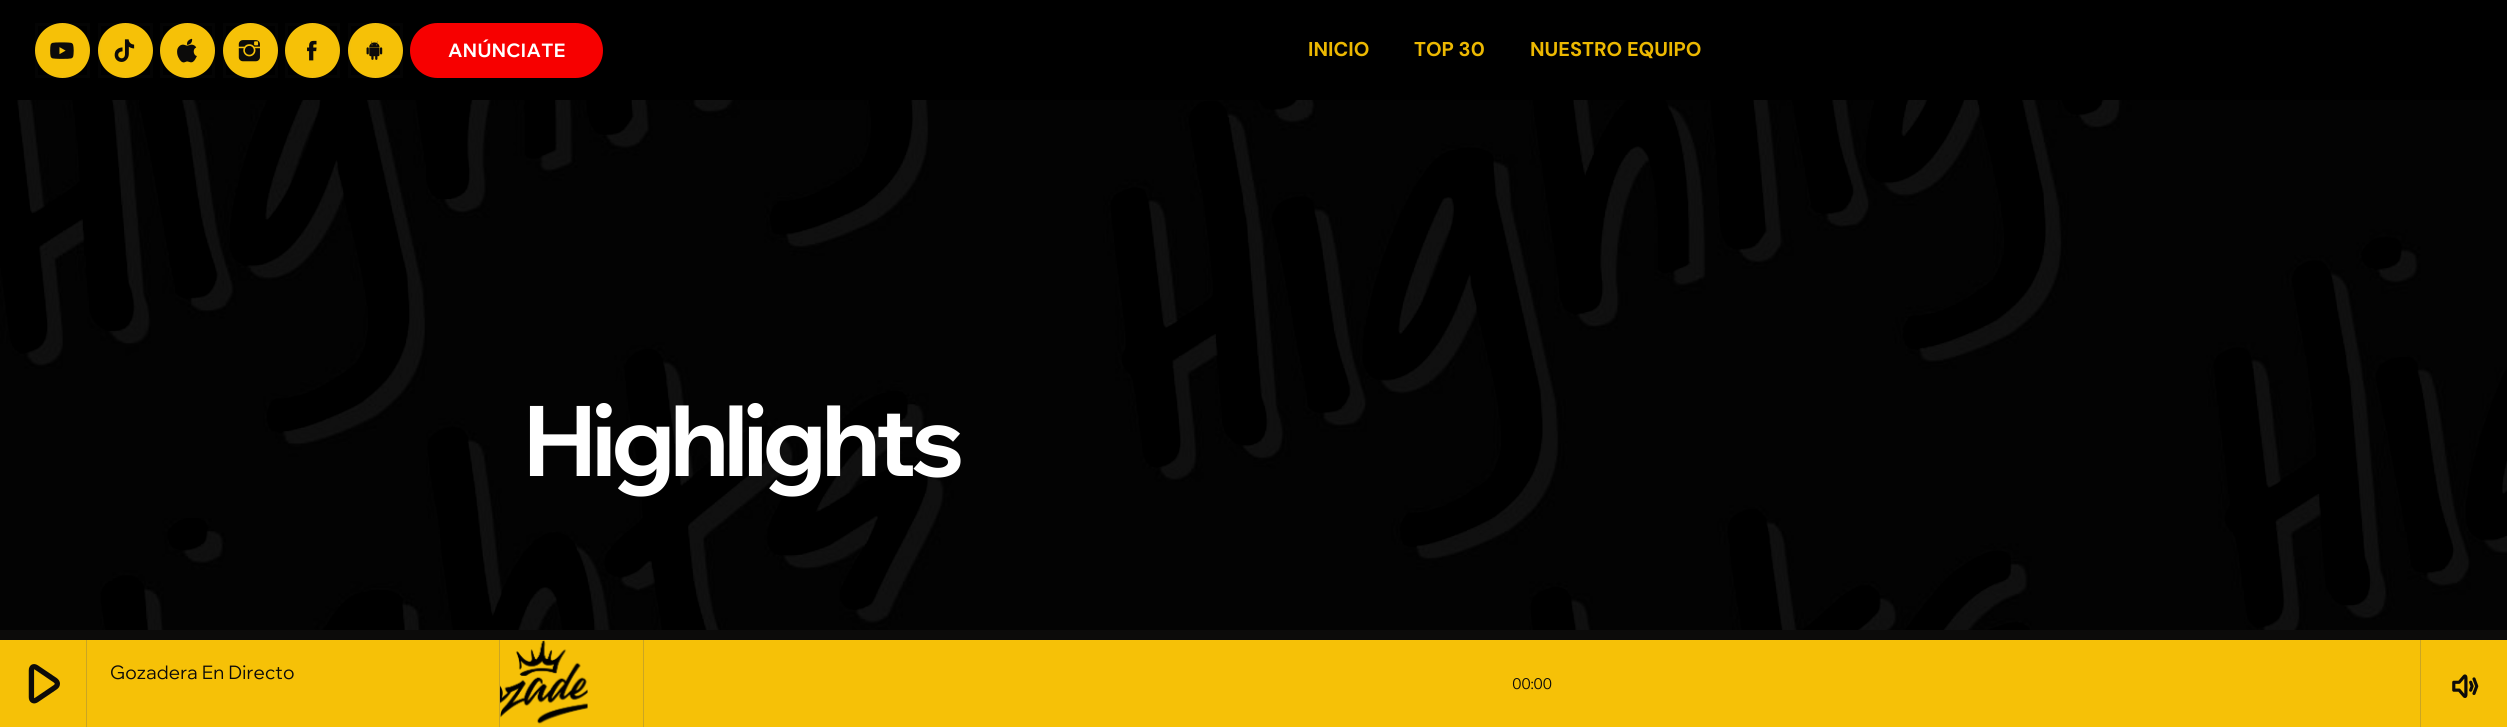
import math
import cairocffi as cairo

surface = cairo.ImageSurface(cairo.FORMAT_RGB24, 2507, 727)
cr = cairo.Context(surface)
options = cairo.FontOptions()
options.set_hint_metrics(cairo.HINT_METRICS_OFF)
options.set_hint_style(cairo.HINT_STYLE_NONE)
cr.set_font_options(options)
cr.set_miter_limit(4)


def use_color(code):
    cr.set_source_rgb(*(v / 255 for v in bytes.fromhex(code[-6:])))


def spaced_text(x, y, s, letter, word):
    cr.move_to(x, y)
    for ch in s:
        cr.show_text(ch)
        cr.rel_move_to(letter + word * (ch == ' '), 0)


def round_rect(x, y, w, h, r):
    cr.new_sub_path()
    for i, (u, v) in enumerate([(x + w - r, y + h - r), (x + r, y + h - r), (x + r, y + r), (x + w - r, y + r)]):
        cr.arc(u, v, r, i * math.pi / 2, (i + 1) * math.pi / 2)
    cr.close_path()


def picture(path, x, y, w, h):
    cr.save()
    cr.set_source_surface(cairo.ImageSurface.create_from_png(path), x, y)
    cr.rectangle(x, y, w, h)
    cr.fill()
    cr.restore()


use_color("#0c0b0a")
cr.paint()
use_color("#000000")
cr.rectangle(0, 0, 2507, 100)
cr.fill()
use_color("#f6c107")
cr.arc(62.5, 50.5, 27.5, 0, 2 * math.pi)
cr.fill()
cr.rectangle(36.5, 24.5, 52, 52)
cr.set_source_rgba(0.549, 0.549, 0.549, 0.03)
cr.set_line_width(3)
cr.stroke()
picture("img1.png", 50, 42, 24, 17)
use_color("#f6c107")
cr.arc(125.5, 50.5, 27.5, 0, 2 * math.pi)
cr.fill()
cr.rectangle(99.5, 24.5, 52, 52)
cr.set_source_rgba(0.549, 0.549, 0.549, 0.03)
cr.stroke()
picture("img2.png", 114, 39, 21, 23)
use_color("#f6c107")
cr.arc(187.5, 50.5, 27.5, 0, 2 * math.pi)
cr.fill()
cr.rectangle(161.5, 24.5, 52, 52)
cr.set_source_rgba(0.549, 0.549, 0.549, 0.03)
cr.stroke()
picture("img3.png", 177, 38, 20, 25)
use_color("#f6c107")
cr.arc(250.5, 50.5, 27.5, 0, 2 * math.pi)
cr.fill()
cr.rectangle(224.5, 24.5, 52, 52)
cr.set_source_rgba(0.549, 0.549, 0.549, 0.03)
cr.stroke()
picture("img4.png", 238, 40, 22, 22)
use_color("#f6c107")
cr.arc(312.5, 50.5, 27.5, 0, 2 * math.pi)
cr.fill()
cr.rectangle(286.5, 24.5, 52, 52)
cr.set_source_rgba(0.549, 0.549, 0.549, 0.03)
cr.stroke()
picture("img5.png", 307, 40, 10, 21)
use_color("#f6c107")
cr.arc(375.5, 50.5, 27.5, 0, 2 * math.pi)
cr.fill()
cr.rectangle(349.5, 24.5, 52, 52)
cr.set_source_rgba(0.549, 0.549, 0.549, 0.03)
cr.stroke()
picture("img6.png", 366, 41, 17, 19)
use_color("#f70000")
round_rect(410, 23, 193, 55, 27.5)
cr.fill()
cr.select_font_face("Wix Madefor Display", cairo.FONT_SLANT_NORMAL, cairo.FONT_WEIGHT_BOLD)
cr.set_font_size(18.75)
use_color("#ffffff")
spaced_text(448, 57, "ANÚNCIATE", 0.4, 0)
cr.select_font_face("DM Sans", cairo.FONT_SLANT_NORMAL, cairo.FONT_WEIGHT_BOLD)
cr.set_font_size(20)
use_color("#ecb801")
cr.move_to(1308, 56)
cr.show_text("INICIO")
cr.move_to(1414, 56)
cr.show_text("TOP 30")
cr.move_to(1530, 56)
cr.show_text("NUESTRO EQUIPO")
picture("img7.png", 0, 100, 2507, 530)
cr.select_font_face("Wix Madefor Display", cairo.FONT_SLANT_NORMAL, cairo.FONT_WEIGHT_BOLD)
cr.set_font_size(98)
use_color("#ffffff")
spaced_text(523, 476, "Highlights", -5, 0)
use_color("#f6c107")
cr.rectangle(0, 640, 2507, 87)
cr.fill()
use_color("#caa523")
cr.rectangle(499, 640, 1, 87)
cr.fill()
cr.rectangle(86, 640, 1, 87)
cr.fill()
picture("img8.png", 28, 664, 32, 40)
cr.select_font_face("Wix Madefor Display")
cr.set_font_size(18.75)
use_color("#0c0b0a")
spaced_text(110, 679, "Gozadera En Directo", 0.2, 0)
picture("img9.png", 500, 640, 88, 84)
use_color("#caa523")
cr.rectangle(643, 640, 1, 87)
cr.fill()
cr.set_font_size(15)
use_color("#0c0b0a")
spaced_text(1512, 689, "00:00", -0.5, 0)
use_color("#caa523")
cr.rectangle(2420, 640, 1, 87)
cr.fill()
picture("img10.png", 2452, 674, 27, 24)
surface.write_to_png("result.png")
